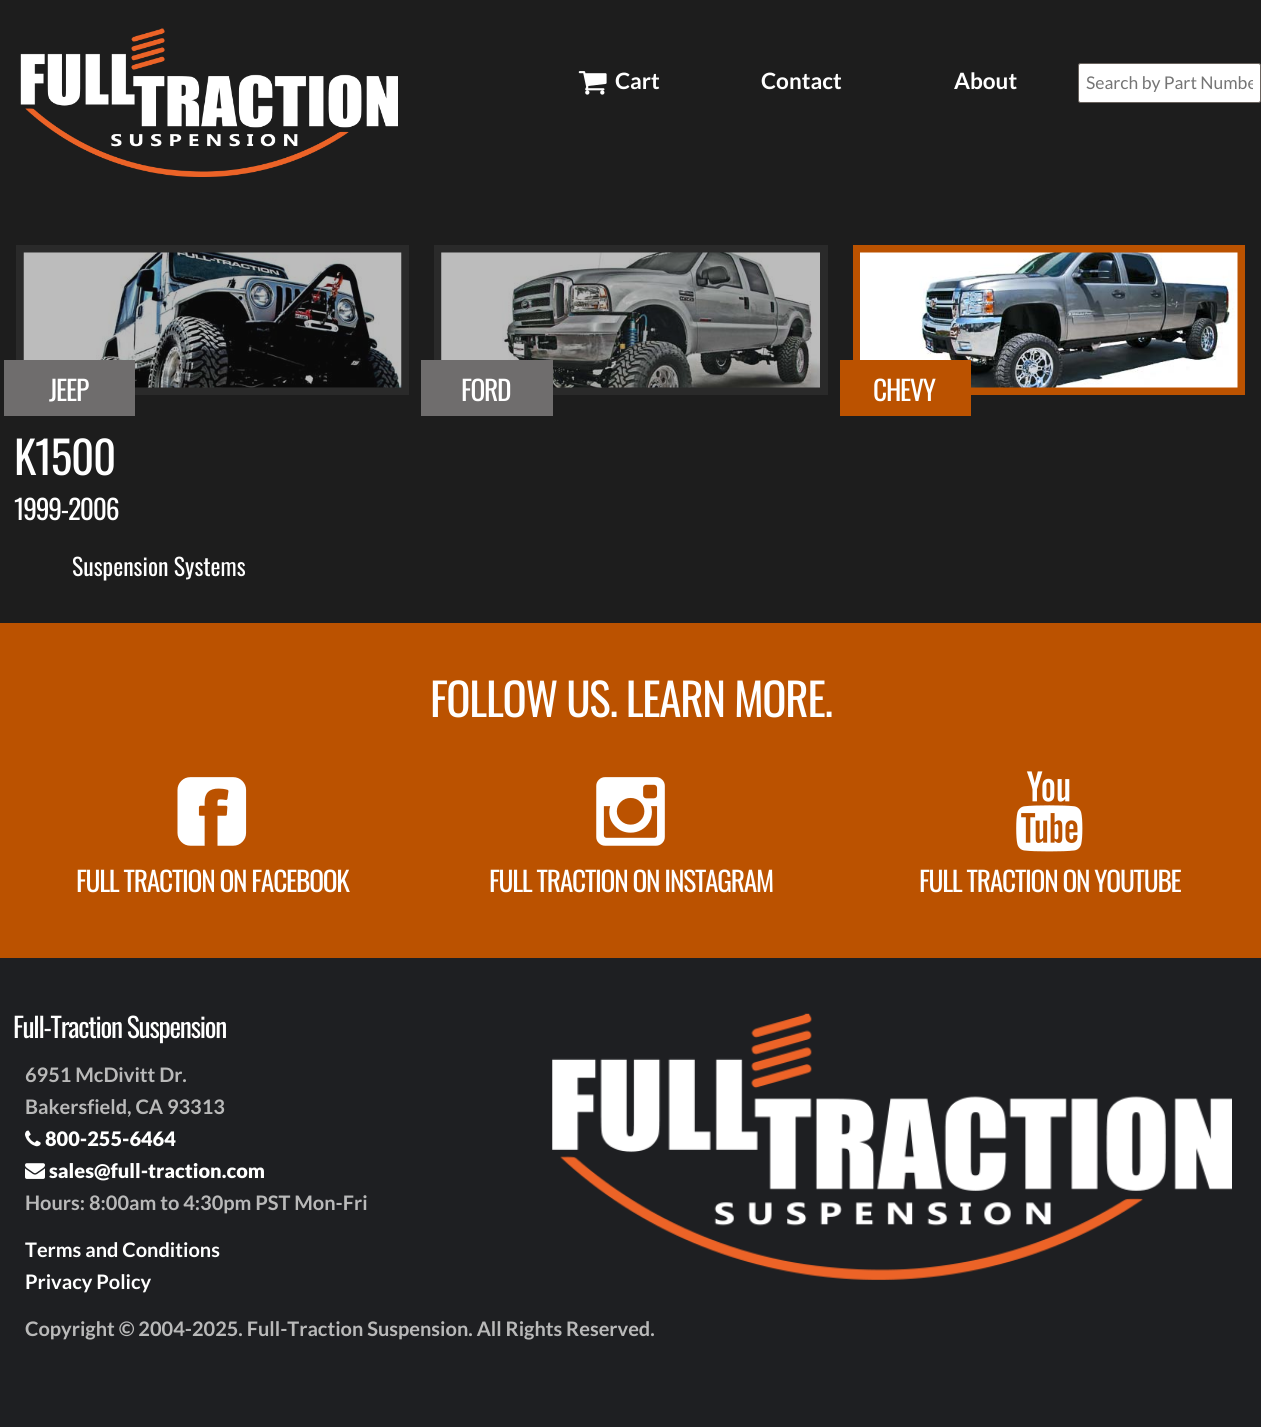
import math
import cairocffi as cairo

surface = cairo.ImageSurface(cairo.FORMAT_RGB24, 1261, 1427)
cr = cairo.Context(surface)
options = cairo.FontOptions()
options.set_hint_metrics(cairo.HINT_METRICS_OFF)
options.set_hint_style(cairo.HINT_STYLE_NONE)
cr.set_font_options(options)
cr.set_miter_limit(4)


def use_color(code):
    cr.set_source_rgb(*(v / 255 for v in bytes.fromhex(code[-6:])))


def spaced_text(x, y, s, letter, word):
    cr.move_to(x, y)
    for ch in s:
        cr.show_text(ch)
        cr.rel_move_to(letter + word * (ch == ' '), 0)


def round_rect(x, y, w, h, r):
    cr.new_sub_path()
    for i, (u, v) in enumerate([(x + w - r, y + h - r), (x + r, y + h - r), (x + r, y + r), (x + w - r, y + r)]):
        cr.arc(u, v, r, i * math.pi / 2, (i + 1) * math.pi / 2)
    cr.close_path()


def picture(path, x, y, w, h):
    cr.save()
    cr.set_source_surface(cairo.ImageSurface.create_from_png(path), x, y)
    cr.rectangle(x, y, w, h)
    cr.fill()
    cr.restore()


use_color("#1d1d1d")
cr.paint()
picture("img1.png", 20, 28, 378, 149)
picture("img2.png", 578, 71, 29, 24)
cr.select_font_face("Lato", cairo.FONT_SLANT_NORMAL, cairo.FONT_WEIGHT_BOLD)
cr.set_font_size(22.5)
use_color("#ffffff")
cr.move_to(615, 89)
cr.show_text("Cart")
cr.move_to(761, 89)
cr.show_text("Contact")
cr.move_to(954, 89)
cr.show_text("About")
round_rect(1078.5, 63.5, 182, 39, 2)
cr.fill_preserve()
use_color("#68615c")
cr.set_line_width(1)
cr.stroke()
cr.save()
cr.rectangle(1086, 73, 167, 21)
cr.clip()
cr.select_font_face("Lato")
cr.set_font_size(17.5)
use_color("#757575")
cr.move_to(1086, 89)
cr.show_text("Search by Part Numbe")
cr.restore()
cr.rectangle(20, 249, 385, 142)
use_color("#2a2a2a")
cr.set_line_width(8)
cr.stroke()
picture("img3.png", 23, 252, 379, 136)
use_color("#6f6d6d")
cr.rectangle(4, 360, 131, 56)
cr.fill()
cr.select_font_face("Oswald")
cr.set_font_size(27.5)
use_color("#ffffff")
spaced_text(49, 401, "JEEP", -1.25, 0)
cr.rectangle(438, 249, 386, 142)
use_color("#2a2a2a")
cr.stroke()
picture("img4.png", 441, 252, 379, 136)
use_color("#6f6d6d")
cr.rectangle(421, 360, 132, 56)
cr.fill()
use_color("#ffffff")
spaced_text(461, 401, "FORD", -1.25, 0)
cr.rectangle(857, 249, 384, 142)
use_color("#bb5200")
cr.stroke()
picture("img5.png", 860, 252, 378, 136)
cr.rectangle(840, 360, 131, 56)
cr.fill()
use_color("#ffffff")
spaced_text(873, 401, "CHEVY", -1.25, 0)
cr.set_font_size(45)
spaced_text(14, 475, "K1500", -1.25, 0)
cr.set_font_size(27.5)
spaced_text(14, 520, "1999-2006", -1.25, 0)
cr.set_font_size(23.75)
cr.move_to(72, 576)
cr.show_text("Suspension Systems")
use_color("#bb5200")
cr.rectangle(0, 623, 1261, 335)
cr.fill()
cr.set_font_size(45)
use_color("#ffffff")
spaced_text(430, 717, "FOLLOW US. LEARN MORE.", -1.25, 0)
picture("img6.png", 177, 777, 70, 69)
cr.set_font_size(27.5)
spaced_text(76, 892, "FULL TRACTION ON FACEBOOK", -1.25, 0)
picture("img7.png", 596, 777, 69, 69)
spaced_text(489, 892, "FULL TRACTION ON INSTAGRAM", -1.25, 0)
picture("img8.png", 1016, 771, 67, 81)
spaced_text(919, 892, "FULL TRACTION ON YOUTUBE", -1.25, 0)
use_color("#1e1f22")
cr.rectangle(0, 958, 1261, 469)
cr.fill()
use_color("#ffffff")
spaced_text(13, 1038, "Full-Traction Suspension", -1.25, 0)
cr.select_font_face("Lato", cairo.FONT_SLANT_NORMAL, cairo.FONT_WEIGHT_BOLD)
cr.set_font_size(20)
use_color("#b9b9b9")
cr.move_to(25, 1082)
cr.show_text("6951 McDivitt Dr.")
cr.move_to(25, 1114)
cr.show_text("Bakersfield, CA 93313")
picture("img9.png", 25, 1130, 16, 17)
cr.select_font_face("Lato Black")
use_color("#ffffff")
cr.move_to(45, 1146)
cr.show_text("800-255-6464")
picture("img10.png", 25, 1163, 20, 16)
cr.move_to(49, 1178)
cr.show_text("sales@full-traction.com")
cr.select_font_face("Lato", cairo.FONT_SLANT_NORMAL, cairo.FONT_WEIGHT_BOLD)
use_color("#b9b9b9")
cr.move_to(25, 1210)
cr.show_text("Hours: 8:00am to 4:30pm PST Mon-Fri")
use_color("#ffffff")
cr.move_to(25, 1257)
cr.show_text("Terms and Conditions")
cr.move_to(25, 1289)
cr.show_text("Privacy Policy")
picture("img11.png", 552, 1013, 680, 267)
use_color("#b9b9b9")
cr.move_to(25, 1336)
cr.show_text("Copyright © 2004-2025. Full-Traction Suspension. All Rights Reserved.")
surface.write_to_png("result.png")
